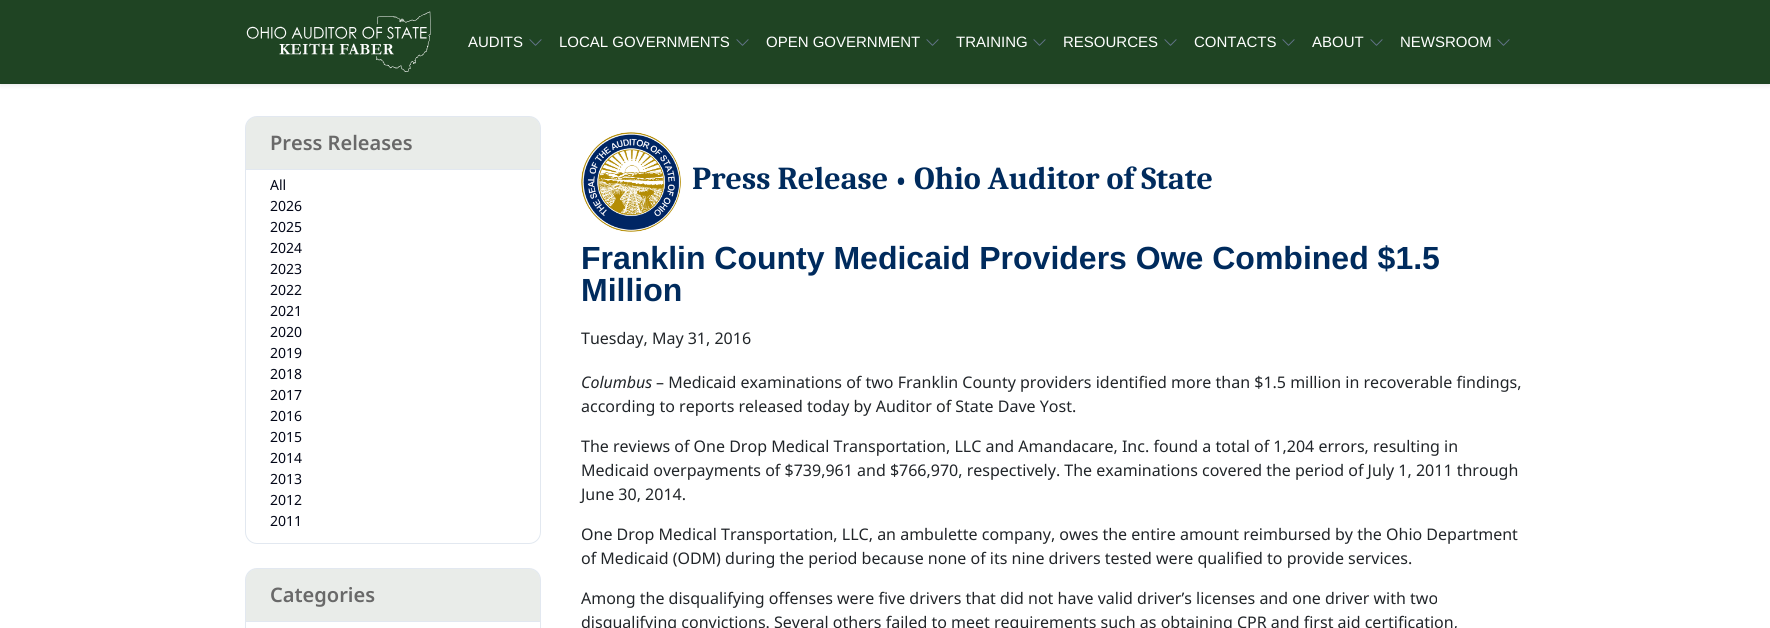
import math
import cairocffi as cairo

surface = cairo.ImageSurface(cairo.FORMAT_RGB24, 1770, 628)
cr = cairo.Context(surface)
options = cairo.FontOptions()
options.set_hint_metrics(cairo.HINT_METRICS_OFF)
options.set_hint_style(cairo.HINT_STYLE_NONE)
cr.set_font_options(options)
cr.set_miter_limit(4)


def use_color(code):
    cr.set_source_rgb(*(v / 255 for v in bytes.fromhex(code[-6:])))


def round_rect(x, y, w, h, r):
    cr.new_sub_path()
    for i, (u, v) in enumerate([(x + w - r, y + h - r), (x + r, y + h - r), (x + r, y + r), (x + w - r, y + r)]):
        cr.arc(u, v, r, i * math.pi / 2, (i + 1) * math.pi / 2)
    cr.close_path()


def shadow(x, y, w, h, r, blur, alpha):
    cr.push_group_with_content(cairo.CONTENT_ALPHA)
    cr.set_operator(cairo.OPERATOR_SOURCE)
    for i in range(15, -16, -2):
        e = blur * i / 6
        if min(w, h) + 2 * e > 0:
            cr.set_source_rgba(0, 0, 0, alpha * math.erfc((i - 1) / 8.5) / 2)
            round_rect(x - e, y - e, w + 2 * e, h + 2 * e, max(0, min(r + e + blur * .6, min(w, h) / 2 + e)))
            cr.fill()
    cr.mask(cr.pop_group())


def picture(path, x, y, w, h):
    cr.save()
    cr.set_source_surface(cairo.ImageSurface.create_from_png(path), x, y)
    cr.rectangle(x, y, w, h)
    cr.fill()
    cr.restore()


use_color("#ffffff")
cr.paint()
use_color("#020617")
shadow(0, 2, 1770, 84, 0, 2, 0.07)
use_color("#1f4423")
cr.rectangle(0, 0, 1770, 84)
cr.fill()
picture("img1.png", 246, 11, 185, 61)
cr.select_font_face("Liberation Sans")
cr.set_font_size(15)
use_color("#ffffff")
cr.move_to(468, 47)
cr.show_text("AUDITS")
picture("img2.png", 529, 39, 13, 7)
cr.move_to(559, 47)
cr.show_text("LOCAL GOVERNMENTS")
picture("img2.png", 736, 39, 13, 7)
cr.move_to(766, 47)
cr.show_text("OPEN GOVERNMENT")
picture("img2.png", 926, 39, 13, 7)
cr.move_to(956, 47)
cr.show_text("TRAINING")
picture("img2.png", 1033, 39, 13, 7)
cr.move_to(1063, 47)
cr.show_text("RESOURCES")
picture("img2.png", 1164, 39, 13, 7)
cr.move_to(1194, 47)
cr.show_text("CONTACTS")
picture("img2.png", 1282, 39, 13, 7)
cr.move_to(1312, 47)
cr.show_text("ABOUT")
picture("img2.png", 1370, 39, 13, 7)
cr.move_to(1400, 47)
cr.show_text("NEWSROOM")
picture("img2.png", 1497, 39, 13, 7)
round_rect(245.5, 116.5, 295, 427, 11.5)
use_color("#e2e8f0")
cr.set_line_width(1)
cr.stroke()
cr.set_source_rgba(0.122, 0.267, 0.137, 0.1)
cr.new_path()
cr.move_to(257, 117)
cr.line_to(529, 117)
cr.curve_to(535, 117, 540, 122, 540, 128)
cr.line_to(540, 170)
cr.line_to(246, 170)
cr.line_to(246, 128)
cr.curve_to(246, 122, 251, 117, 257, 117)
cr.close_path()
cr.fill()
use_color("#e2e8f0")
cr.rectangle(246, 169, 294, 1)
cr.fill()
cr.select_font_face("Noto Sans SemiBold")
cr.set_font_size(20)
use_color("#696969")
cr.move_to(270, 150)
cr.show_text("Press Releases")
cr.select_font_face("Noto Sans")
cr.set_font_size(14)
use_color("#020617")
cr.move_to(270, 190)
cr.show_text("All")
cr.move_to(270, 211)
cr.show_text("2026")
cr.move_to(270, 232)
cr.show_text("2025")
cr.move_to(270, 253)
cr.show_text("2024")
cr.move_to(270, 274)
cr.show_text("2023")
cr.move_to(270, 295)
cr.show_text("2022")
cr.move_to(270, 316)
cr.show_text("2021")
cr.move_to(270, 337)
cr.show_text("2020")
cr.move_to(270, 358)
cr.show_text("2019")
cr.move_to(270, 379)
cr.show_text("2018")
cr.move_to(270, 400)
cr.show_text("2017")
cr.move_to(270, 421)
cr.show_text("2016")
cr.move_to(270, 442)
cr.show_text("2015")
cr.move_to(270, 463)
cr.show_text("2014")
cr.move_to(270, 484)
cr.show_text("2013")
cr.move_to(270, 505)
cr.show_text("2012")
cr.move_to(270, 526)
cr.show_text("2011")
round_rect(245.5, 568.5, 295, 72, 11.5)
use_color("#e2e8f0")
cr.stroke()
cr.set_source_rgba(0.122, 0.267, 0.137, 0.1)
cr.new_path()
cr.move_to(257, 569)
cr.line_to(529, 569)
cr.curve_to(535, 569, 540, 574, 540, 580)
cr.line_to(540, 622)
cr.line_to(246, 622)
cr.line_to(246, 580)
cr.curve_to(246, 574, 251, 569, 257, 569)
cr.close_path()
cr.fill()
use_color("#e2e8f0")
cr.rectangle(246, 621, 294, 1)
cr.fill()
cr.select_font_face("Noto Sans SemiBold")
cr.set_font_size(20)
use_color("#696969")
cr.move_to(270, 602)
cr.show_text("Categories")
picture("img3.png", 581, 132, 100, 100)
cr.select_font_face("Caladea", cairo.FONT_SLANT_NORMAL, cairo.FONT_WEIGHT_BOLD)
cr.set_font_size(32)
use_color("#002b5d")
cr.move_to(692, 189)
cr.show_text("Press Release")
cr.set_font_size(27)
cr.move_to(895, 189)
cr.show_text("•")
cr.set_font_size(32)
cr.move_to(914, 189)
cr.show_text("Ohio Auditor of State")
cr.select_font_face("Liberation Sans", cairo.FONT_SLANT_NORMAL, cairo.FONT_WEIGHT_BOLD)
cr.move_to(581, 269)
cr.show_text("Franklin County Medicaid Providers Owe Combined $1.5")
cr.move_to(581, 301)
cr.show_text("Million")
cr.select_font_face("Noto Sans")
cr.set_font_size(16)
use_color("#212529")
cr.move_to(581, 344)
cr.show_text("Tuesday, May 31, 2016")
cr.select_font_face("Noto Sans", cairo.FONT_SLANT_ITALIC)
cr.move_to(581, 388)
cr.show_text("Columbus")
cr.select_font_face("Noto Sans")
cr.move_to(656, 388)
cr.show_text("– Medicaid examinations of two Franklin County providers identified more than $1.5 million in recoverable findings,")
cr.move_to(581, 412)
cr.show_text("according to reports released today by Auditor of State Dave Yost.")
cr.move_to(581, 452)
cr.show_text("The reviews of One Drop Medical Transportation, LLC and Amandacare, Inc. found a total of 1,204 errors, resulting in")
cr.move_to(581, 476)
cr.show_text("Medicaid overpayments of $739,961 and $766,970, respectively. The examinations covered the period of July 1, 2011 through")
cr.move_to(581, 500)
cr.show_text("June 30, 2014.")
cr.move_to(581, 540)
cr.show_text("One Drop Medical Transportation, LLC, an ambulette company, owes the entire amount reimbursed by the Ohio Department")
cr.move_to(581, 564)
cr.show_text("of Medicaid (ODM) during the period because none of its nine drivers tested were qualified to provide services.")
cr.move_to(581, 604)
cr.show_text("Among the disqualifying offenses were five drivers that did not have valid driver’s licenses and one driver with two")
cr.move_to(581, 628)
cr.show_text("disqualifying convictions. Several others failed to meet requirements such as obtaining CPR and first aid certification,")
surface.write_to_png("result.png")
